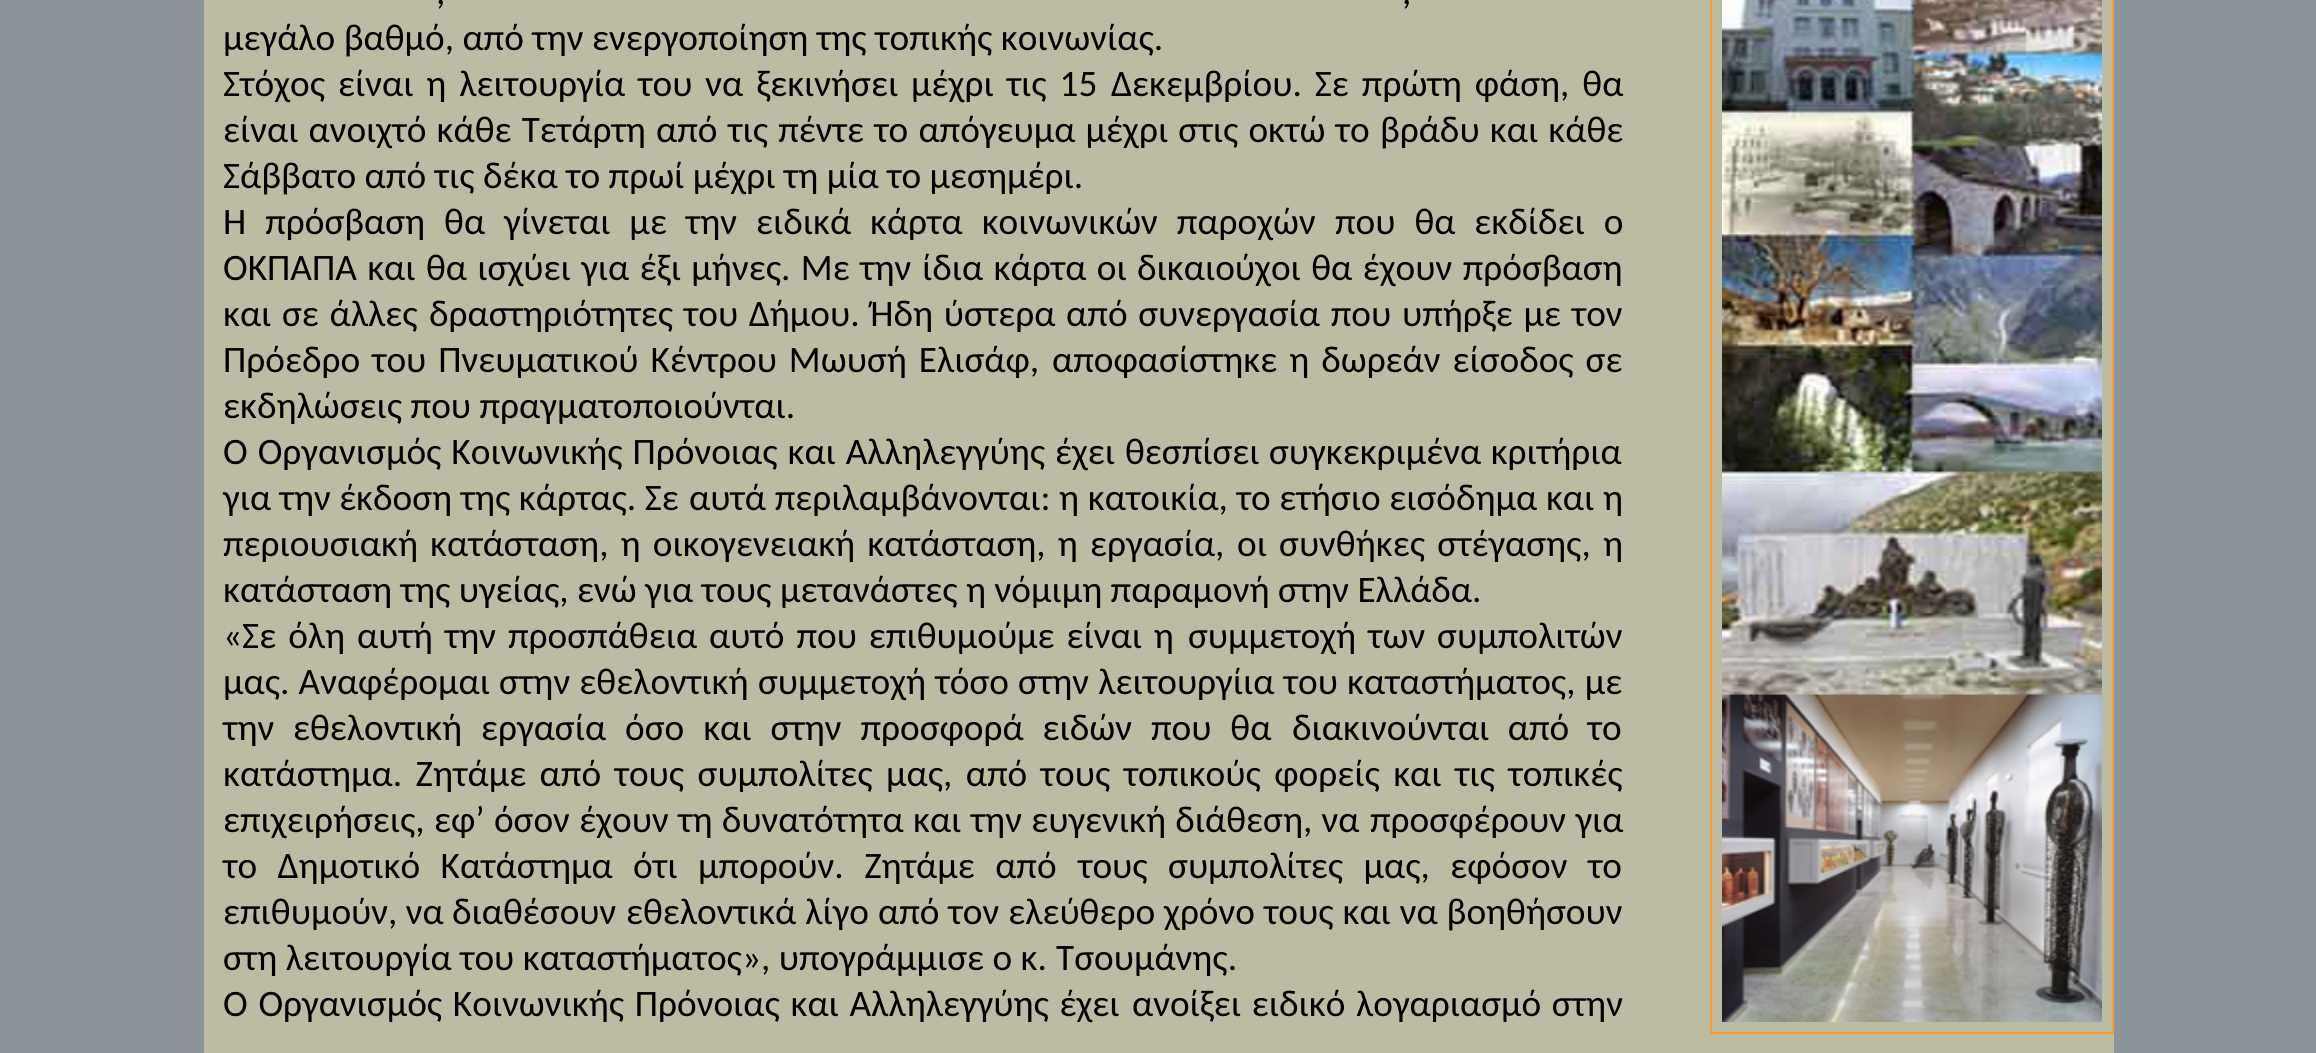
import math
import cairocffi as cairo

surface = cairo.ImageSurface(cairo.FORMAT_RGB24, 2316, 1053)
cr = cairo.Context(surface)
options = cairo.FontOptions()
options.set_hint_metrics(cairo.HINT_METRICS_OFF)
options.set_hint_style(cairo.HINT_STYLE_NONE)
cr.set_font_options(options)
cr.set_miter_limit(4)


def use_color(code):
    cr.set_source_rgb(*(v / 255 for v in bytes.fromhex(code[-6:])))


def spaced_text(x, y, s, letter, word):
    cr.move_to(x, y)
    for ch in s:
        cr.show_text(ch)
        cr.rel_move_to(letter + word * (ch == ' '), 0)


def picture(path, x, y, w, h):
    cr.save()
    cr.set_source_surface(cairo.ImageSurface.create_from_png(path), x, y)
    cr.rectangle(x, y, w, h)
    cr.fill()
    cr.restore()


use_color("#8a9499")
cr.paint()
use_color("#bdbca3")
cr.rectangle(204, 0, 1910, 1053)
cr.fill()
cr.select_font_face("Carlito")
cr.set_font_size(37.3)
use_color("#000000")
spaced_text(436, 4, ",", 0, 3)
spaced_text(1402, 4, ",", 0, 3)
cr.move_to(223, 50)
cr.show_text("μεγάλο βαθμό, από την ενεργοποίηση της τοπικής κοινωνίας.")
spaced_text(223, 96, "Στόχος είναι η λειτουργία του να ξεκινήσει μέχρι τις 15", 0, 4.5)
spaced_text(1111, 96, "Δεκεμβρίου. Σε πρώτη φάση, θα", 0, 4.5)
spaced_text(223, 142, "είναι ανοιχτό κάθε Τετάρτη από", 0, 1.75)
spaced_text(728, 142, "τις πέντε το απόγευμα μέχρι στις οκτώ το βράδυ και κάθε", 0, 1.75)
cr.move_to(223, 188)
cr.show_text("Σάββατο από τις δέκα το πρωί μέχρι τη μία το μεσημέρι.")
spaced_text(223, 234, "Η πρόσβαση θα γίνεται με την ειδικά κάρτα κοινωνικών παροχών", 0, 10.5)
spaced_text(1335, 234, "που θα εκδίδει ο", 0, 10.5)
spaced_text(223, 280, "ΟΚΠΑΠΑ και θα ισχύει για έξι μήνες. Με την", 0, 2)
spaced_text(922, 280, "ίδια κάρτα οι δικαιούχοι θα έχουν πρόσβαση", 0, 2)
spaced_text(223, 326, "και σε άλλες", 0, 2.25)
spaced_text(429, 326, "δραστηριότητες του Δήμου. Ήδη ύστερα από συνεργασία που", 0, 2.25)
spaced_text(1402, 326, "υπήρξε με τον", 0, 2.25)
spaced_text(223, 372, "Πρόεδρο του Πνευματικού Κέντρου Μωυσή Ελισάφ,", 0, 3.5)
spaced_text(1052, 372, "αποφασίστηκε η δωρεάν είσοδος σε", 0, 3.5)
cr.move_to(223, 418)
cr.show_text("εκδηλώσεις που πραγματοποιούνται.")
spaced_text(223, 464, "Ο Οργανισμός Κοινωνικής Πρόνοιας και Αλληλεγγύης έχει", 0, 1.5)
spaced_text(1125, 464, "θεσπίσει συγκεκριμένα κριτήρια", 0, 1)
cr.move_to(223, 510)
cr.show_text("για την έκδοση της κάρτας. Σε")
spaced_text(689, 510, "αυτά περιλαμβάνονται: η κατοικία, το ετήσιο εισόδημα και η", 0, 0.25)
spaced_text(223, 556, "περιουσιακή κατάσταση, η οικογενειακή κατάσταση, η εργασία,", 0, 3.75)
spaced_text(1237, 556, "οι συνθήκες στέγασης, η", 0, 3.75)
cr.move_to(223, 602)
cr.show_text("κατάσταση της υγείας, ενώ για τους")
cr.move_to(780, 602)
cr.show_text("μετανάστες η νόμιμη παραμονή στην Ελλάδα.")
spaced_text(223, 648, "«Σε όλη αυτή την προσπάθεια αυτό που επιθυμούμε είναι η", 0, 3.5)
spaced_text(1188, 648, "συμμετοχή των συμπολιτών", 0, 3.5)
spaced_text(223, 694, "μας. Αναφέρομαι στην εθελοντική", 0, 0.75)
spaced_text(758, 694, "συμμετοχή τόσο στην λειτουργίια του καταστήματος, με", 0, 0.75)
cr.move_to(223, 740)
cr.show_text("την")
spaced_text(293, 740, "εθελοντική εργασία όσο και στην προσφορά ειδών που θα", 0, 10.5)
spaced_text(1292, 740, "διακινούνται από το", 0, 10)
spaced_text(223, 786, "κατάστημα. Ζητάμε από τους συμπολίτες", 0, 5)
spaced_text(886, 786, "μας, από τους τοπικούς φορείς και τις τοπικές", 0, 5)
cr.move_to(223, 832)
cr.show_text("επιχειρήσεις,")
spaced_text(434, 832, "εφ’ όσον έχουν τη δυνατότητα και την ευγενική διάθεση, να", 0, 0.9)
spaced_text(1370, 832, "προσφέρουν για", 0, 1)
spaced_text(223, 878, "το Δημοτικό Κατάστημα ότι μπορούν. Ζητάμε από", 0, 12)
spaced_text(1078, 878, "τους συμπολίτες μας, εφόσον το", 0, 12)
cr.move_to(223, 924)
cr.show_text("επιθυμούν, να διαθέσουν")
spaced_text(626, 924, "εθελοντικά λίγο από τον ελεύθερο χρόνο τους και να βοηθήσουν", 0, 0.5)
cr.move_to(223, 970)
cr.show_text("στη λειτουργία του καταστήματος», υπογράμμισε ο κ.")
cr.move_to(1056, 970)
cr.show_text("Τσουμάνης.")
spaced_text(223, 1016, "Ο Οργανισμός Κοινωνικής Πρόνοιας και Αλληλεγγύης έχει", 0, 2.25)
spaced_text(1132, 1016, "ανοίξει ειδικό λογαριασμό στην", 0, 2.25)
cr.rectangle(1711, -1, 402, 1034)
use_color("#ff9933")
cr.stroke()
picture("img1.png", 1722, 0, 380, 1022)
surface.write_to_png("result.png")
